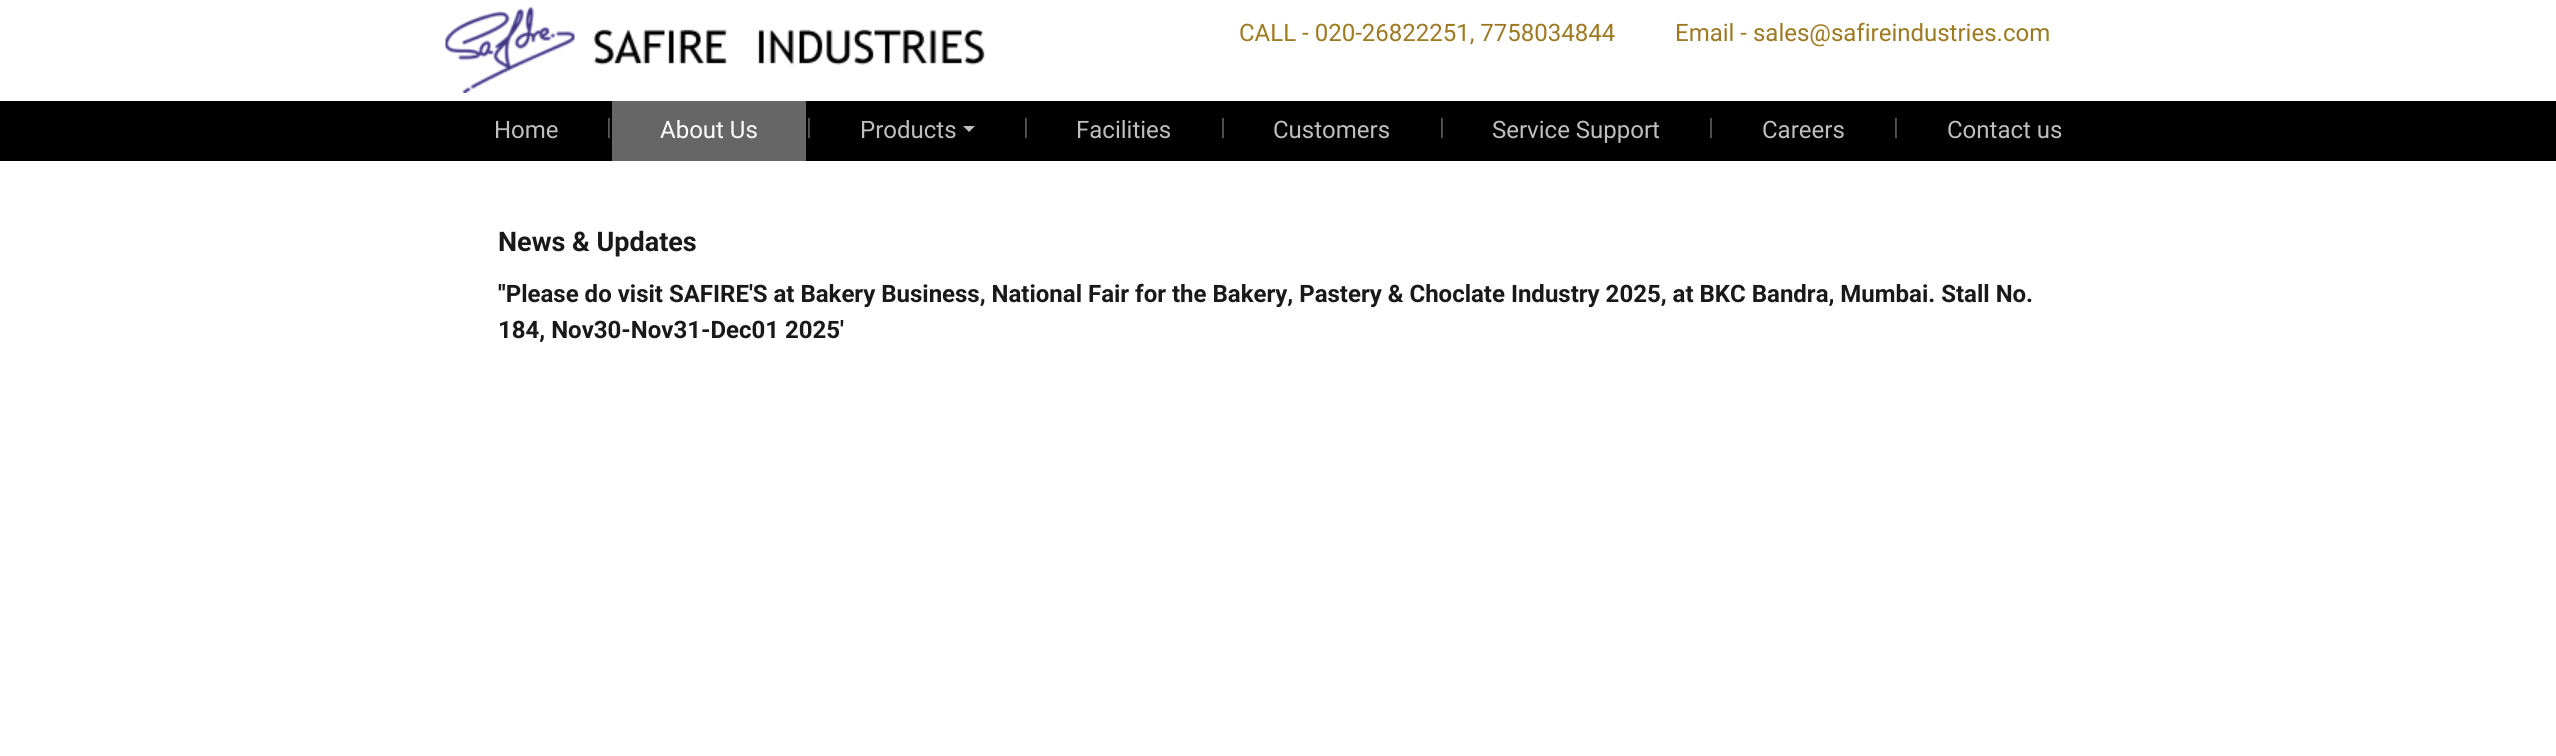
import math
import cairocffi as cairo

surface = cairo.ImageSurface(cairo.FORMAT_RGB24, 2556, 756)
cr = cairo.Context(surface)
options = cairo.FontOptions()
options.set_hint_metrics(cairo.HINT_METRICS_OFF)
options.set_hint_style(cairo.HINT_STYLE_NONE)
cr.set_font_options(options)
cr.set_miter_limit(4)


def use_color(code):
    cr.set_source_rgb(*(v / 255 for v in bytes.fromhex(code[-6:])))


def picture(path, x, y, w, h):
    cr.save()
    cr.set_source_surface(cairo.ImageSurface.create_from_png(path), x, y)
    cr.rectangle(x, y, w, h)
    cr.fill()
    cr.restore()


use_color("#ffffff")
cr.paint()
picture("img1.png", 445, 7, 540, 86)
cr.select_font_face("Roboto")
cr.set_font_size(24)
use_color("#9d7921")
cr.move_to(1239, 41)
cr.show_text("CALL - 020-26822251, 7758034844")
cr.move_to(1675, 41)
cr.show_text("Email - sales@safireindustries.com")
use_color("#000000")
cr.rectangle(0, 101, 2556, 60)
cr.fill()
use_color("#bfbfbf")
cr.move_to(494, 138)
cr.show_text("Home")
use_color("#595959")
cr.move_to(606, 135)
cr.show_text("|")
use_color("#666666")
cr.rectangle(612, 101, 194, 60)
cr.fill()
use_color("#ffffff")
cr.move_to(660, 138)
cr.show_text("About Us")
use_color("#595959")
cr.move_to(806, 135)
cr.show_text("|")
use_color("#bfbfbf")
cr.move_to(860, 138)
cr.show_text("Products")
cr.new_path()
cr.move_to(963, 126)
cr.line_to(975, 126)
cr.line_to(969, 132)
cr.close_path()
cr.fill()
use_color("#595959")
cr.move_to(1023, 135)
cr.show_text("|")
use_color("#bfbfbf")
cr.move_to(1076, 138)
cr.show_text("Facilities")
use_color("#595959")
cr.move_to(1220, 135)
cr.show_text("|")
use_color("#bfbfbf")
cr.move_to(1273, 138)
cr.show_text("Customers")
use_color("#595959")
cr.move_to(1439, 135)
cr.show_text("|")
use_color("#bfbfbf")
cr.move_to(1492, 138)
cr.show_text("Service Support")
use_color("#595959")
cr.move_to(1708, 135)
cr.show_text("|")
use_color("#bfbfbf")
cr.move_to(1762, 138)
cr.show_text("Careers")
use_color("#595959")
cr.move_to(1893, 135)
cr.show_text("|")
use_color("#bfbfbf")
cr.move_to(1947, 138)
cr.show_text("Contact us")
cr.select_font_face("Roboto", cairo.FONT_SLANT_NORMAL, cairo.FONT_WEIGHT_BOLD)
cr.set_font_size(27)
use_color("#191919")
cr.move_to(498, 251)
cr.show_text("News & Updates")
cr.set_font_size(24)
cr.move_to(498, 302)
cr.show_text("''Please do visit SAFIRE'S at Bakery Business, National Fair for the Bakery, Pastery & Choclate Industry 2025, at BKC Bandra, Mumbai. Stall No.")
cr.move_to(498, 338)
cr.show_text("184, Nov30-Nov31-Dec01 2025'")
surface.write_to_png("result.png")
